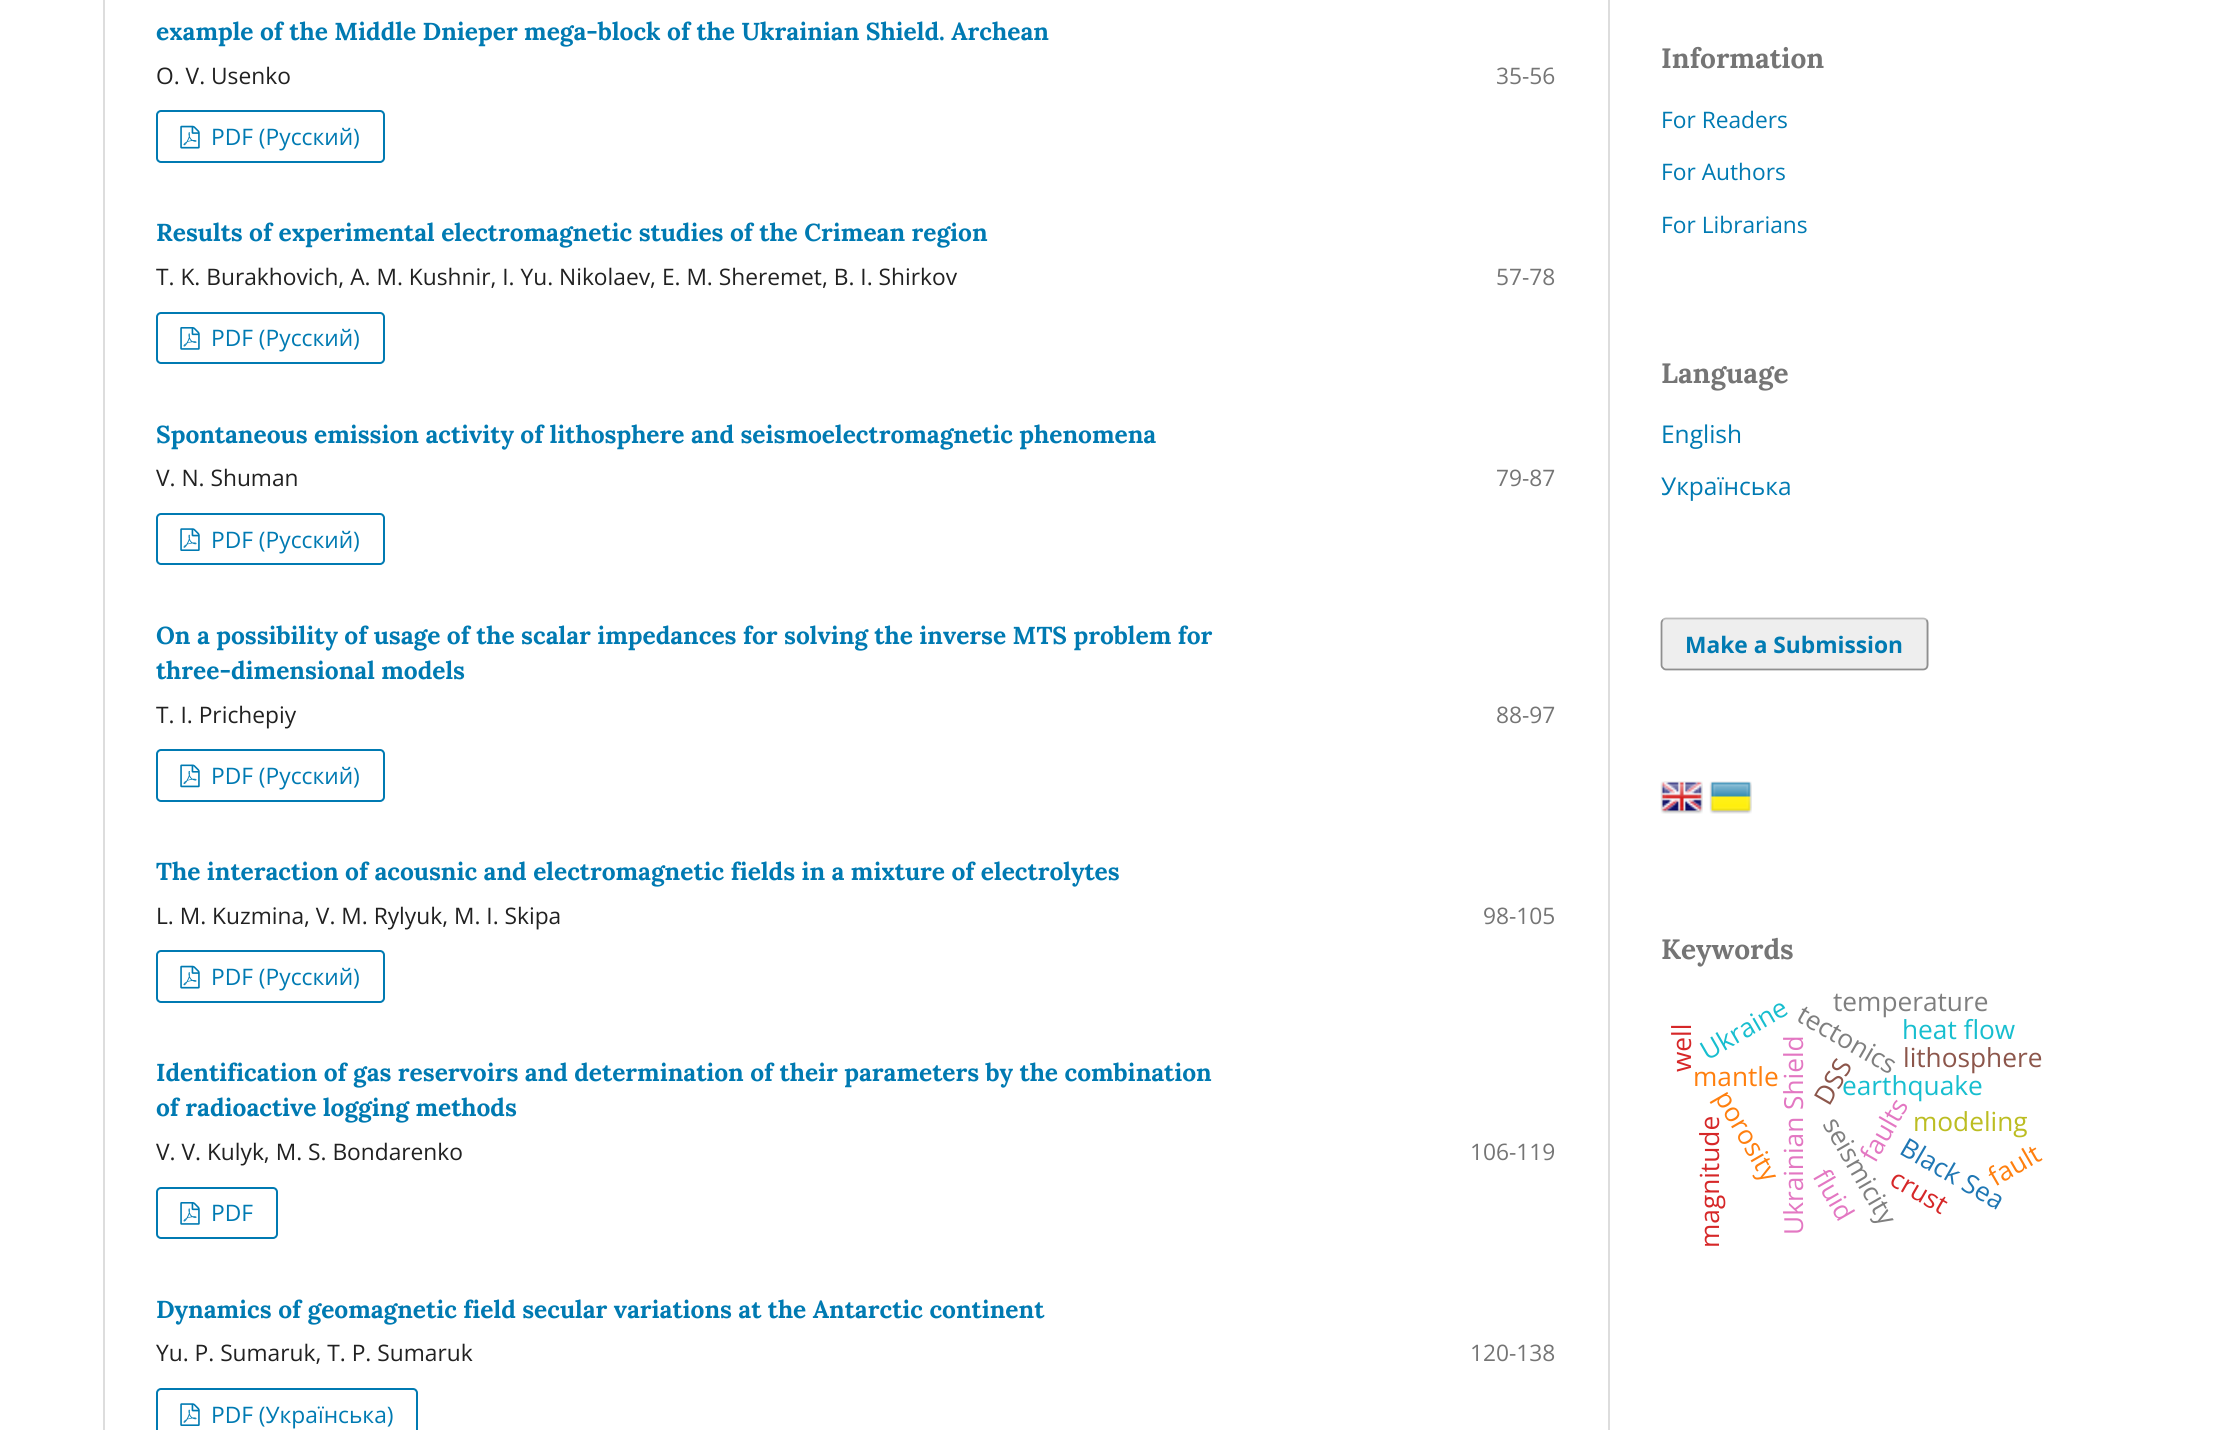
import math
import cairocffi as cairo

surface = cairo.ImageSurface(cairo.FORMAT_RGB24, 2235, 1430)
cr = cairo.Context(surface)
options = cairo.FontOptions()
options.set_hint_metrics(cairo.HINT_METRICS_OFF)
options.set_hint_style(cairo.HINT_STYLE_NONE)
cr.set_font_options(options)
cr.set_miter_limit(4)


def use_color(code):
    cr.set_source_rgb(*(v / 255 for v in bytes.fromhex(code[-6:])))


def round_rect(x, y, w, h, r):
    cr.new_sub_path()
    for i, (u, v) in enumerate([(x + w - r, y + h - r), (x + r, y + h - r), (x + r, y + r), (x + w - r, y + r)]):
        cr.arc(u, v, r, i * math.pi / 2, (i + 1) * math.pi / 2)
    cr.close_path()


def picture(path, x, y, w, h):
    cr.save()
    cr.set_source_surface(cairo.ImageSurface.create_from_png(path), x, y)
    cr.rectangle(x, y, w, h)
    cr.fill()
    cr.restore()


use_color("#ffffff")
cr.paint()
use_color("#dddddd")
cr.rectangle(103, 0, 2, 1430)
cr.fill()
cr.select_font_face("Lora", cairo.FONT_SLANT_NORMAL, cairo.FONT_WEIGHT_BOLD)
cr.set_font_size(24.5)
use_color("#007ab2")
cr.move_to(156, 40)
cr.show_text("example of the Middle Dnieper mega-block of the Ukrainian Shield. Archean")
cr.select_font_face("Open Sans")
cr.set_font_size(22.75)
use_color("#212121")
cr.move_to(156, 84)
cr.show_text("O. V. Usenko")
use_color("#757575")
cr.move_to(1496, 84)
cr.show_text("35-56")
round_rect(157, 111, 227, 51, 4)
use_color("#007ab2")
cr.stroke()
picture("img1.png", 180, 125, 20, 24)
cr.move_to(211, 145)
cr.show_text("PDF (Русский)")
cr.select_font_face("Lora", cairo.FONT_SLANT_NORMAL, cairo.FONT_WEIGHT_BOLD)
cr.set_font_size(24.5)
cr.move_to(156, 241)
cr.show_text("Results of experimental electromagnetic studies of the Crimean region")
cr.select_font_face("Open Sans")
cr.set_font_size(22.75)
use_color("#212121")
cr.move_to(156, 285)
cr.show_text("T. K. Burakhovich, A. M. Kushnir, I. Yu. Nikolaev, E. M. Sheremet, B. I. Shirkov")
use_color("#757575")
cr.move_to(1496, 285)
cr.show_text("57-78")
round_rect(157, 313, 227, 50, 4)
use_color("#007ab2")
cr.stroke()
picture("img2.png", 180, 327, 20, 23)
cr.move_to(211, 346)
cr.show_text("PDF (Русский)")
cr.select_font_face("Lora", cairo.FONT_SLANT_NORMAL, cairo.FONT_WEIGHT_BOLD)
cr.set_font_size(24.5)
cr.move_to(156, 443)
cr.show_text("Spontaneous emission activity of lithosphere and seismoelectromagnetic phenomena")
cr.select_font_face("Open Sans")
cr.set_font_size(22.75)
use_color("#212121")
cr.move_to(156, 486)
cr.show_text("V. N. Shuman")
use_color("#757575")
cr.move_to(1496, 486)
cr.show_text("79-87")
round_rect(157, 514, 227, 50, 4)
use_color("#007ab2")
cr.stroke()
picture("img3.png", 180, 528, 20, 23)
cr.move_to(211, 548)
cr.show_text("PDF (Русский)")
cr.select_font_face("Lora", cairo.FONT_SLANT_NORMAL, cairo.FONT_WEIGHT_BOLD)
cr.set_font_size(24.5)
cr.move_to(156, 644)
cr.show_text("On a possibility of usage of the scalar impedances for solving the inverse MTS problem for")
cr.move_to(156, 679)
cr.show_text("three-dimensional models")
cr.select_font_face("Open Sans")
cr.set_font_size(22.75)
use_color("#212121")
cr.move_to(156, 723)
cr.show_text("T. I. Prichepiy")
use_color("#757575")
cr.move_to(1496, 723)
cr.show_text("88-97")
round_rect(157, 750, 227, 51, 4)
use_color("#007ab2")
cr.stroke()
picture("img4.png", 180, 764, 20, 24)
cr.move_to(211, 784)
cr.show_text("PDF (Русский)")
cr.select_font_face("Lora", cairo.FONT_SLANT_NORMAL, cairo.FONT_WEIGHT_BOLD)
cr.set_font_size(24.5)
cr.move_to(156, 880)
cr.show_text("The interaction of acousnic and electromagnetic fields in a mixture of electrolytes")
cr.select_font_face("Open Sans")
cr.set_font_size(22.75)
use_color("#212121")
cr.move_to(156, 924)
cr.show_text("L. M. Kuzmina, V. M. Rylyuk, M. I. Skipa")
use_color("#757575")
cr.move_to(1483, 924)
cr.show_text("98-105")
round_rect(157, 951, 227, 51, 4)
use_color("#007ab2")
cr.stroke()
picture("img5.png", 180, 965, 20, 24)
cr.move_to(211, 985)
cr.show_text("PDF (Русский)")
cr.select_font_face("Lora", cairo.FONT_SLANT_NORMAL, cairo.FONT_WEIGHT_BOLD)
cr.set_font_size(24.5)
cr.move_to(156, 1081)
cr.show_text("Identification of gas reservoirs and determination of their parameters by the combination")
cr.move_to(156, 1116)
cr.show_text("of radioactive logging methods")
cr.select_font_face("Open Sans")
cr.set_font_size(22.75)
use_color("#212121")
cr.move_to(156, 1160)
cr.show_text("V. V. Kulyk, M. S. Bondarenko")
use_color("#757575")
cr.move_to(1470, 1160)
cr.show_text("106-119")
round_rect(157, 1188, 120, 50, 4)
use_color("#007ab2")
cr.stroke()
picture("img2.png", 180, 1202, 20, 23)
cr.move_to(211, 1221)
cr.show_text("PDF")
cr.select_font_face("Lora", cairo.FONT_SLANT_NORMAL, cairo.FONT_WEIGHT_BOLD)
cr.set_font_size(24.5)
cr.move_to(156, 1318)
cr.show_text("Dynamics of geomagnetic field secular variations at the Antarctic continent")
cr.select_font_face("Open Sans")
cr.set_font_size(22.75)
use_color("#212121")
cr.move_to(156, 1361)
cr.show_text("Yu. P. Sumaruk, T. P. Sumaruk")
use_color("#757575")
cr.move_to(1470, 1361)
cr.show_text("120-138")
round_rect(157, 1389, 260, 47, 4)
use_color("#007ab2")
cr.stroke()
picture("img3.png", 180, 1403, 20, 23)
cr.move_to(211, 1423)
cr.show_text("PDF (Українська)")
use_color("#dddddd")
cr.rectangle(1608, 0, 2, 1430)
cr.fill()
cr.select_font_face("Lora", cairo.FONT_SLANT_NORMAL, cairo.FONT_WEIGHT_BOLD)
cr.set_font_size(28)
use_color("#757575")
cr.move_to(1661, 68)
cr.show_text("Information")
cr.select_font_face("Open Sans")
cr.set_font_size(22.75)
use_color("#007ab2")
cr.move_to(1661, 128)
cr.show_text("For Readers")
cr.move_to(1661, 180)
cr.show_text("For Authors")
cr.move_to(1661, 233)
cr.show_text("For Librarians")
cr.select_font_face("Lora", cairo.FONT_SLANT_NORMAL, cairo.FONT_WEIGHT_BOLD)
cr.set_font_size(28)
use_color("#757575")
cr.move_to(1661, 383)
cr.show_text("Language")
cr.select_font_face("Open Sans")
cr.set_font_size(24.5)
use_color("#007ab2")
cr.move_to(1661, 443)
cr.show_text("English")
cr.move_to(1661, 495)
cr.show_text("Українська")
use_color("#eeeeee")
round_rect(1661, 618, 268, 52, 5)
cr.fill()
cr.new_path()
cr.move_to(1663, 620)
cr.curve_to(1663.5, 619, 1665, 618.5, 1666, 618.5)
cr.line_to(1923, 618.5)
cr.curve_to(1924.5, 618.5, 1925.5, 619, 1926.5, 620)
use_color("#bbbbbb")
cr.set_line_width(1.8)
cr.stroke()
cr.new_path()
cr.move_to(1926.5, 620)
cr.curve_to(1927, 620.5, 1927.5, 622, 1927.5, 623)
cr.line_to(1927.5, 665)
cr.curve_to(1927.5, 666, 1927, 667.5, 1926.5, 668)
cr.curve_to(1925.5, 669, 1924.5, 669.5, 1923, 669.5)
cr.line_to(1666, 669.5)
cr.curve_to(1665, 669.5, 1663.5, 669, 1663, 668)
cr.curve_to(1662, 667.5, 1661.5, 666, 1661.5, 665)
cr.line_to(1661.5, 623)
cr.curve_to(1661.5, 622, 1662, 620.5, 1663, 620)
cr.set_source_rgba(0, 0, 0, 0.4)
cr.stroke()
cr.select_font_face("Open Sans", cairo.FONT_SLANT_NORMAL, cairo.FONT_WEIGHT_BOLD)
cr.set_font_size(22.75)
use_color("#007ab2")
cr.move_to(1685, 653)
cr.show_text("Make a Submission")
picture("img6.png", 1660, 781, 43, 33)
picture("img7.png", 1709, 781, 43, 33)
cr.select_font_face("Lora", cairo.FONT_SLANT_NORMAL, cairo.FONT_WEIGHT_BOLD)
cr.set_font_size(28)
use_color("#757575")
cr.move_to(1661, 959)
cr.show_text("Keywords")
cr.select_font_face("Open Sans")
cr.set_font_size(26.25)
use_color("#17becf")
cr.save()
cr.translate(1707, 1061)
cr.rotate(-30 * math.pi / 180)
cr.move_to(0, 0)
cr.show_text("Ukraine")
cr.restore()
use_color("#e377c2")
cr.save()
cr.translate(1803, 1235)
cr.rotate(-90 * math.pi / 180)
cr.move_to(0, 0)
cr.show_text("Ukrainian Shield")
cr.restore()
use_color("#7f7f7f")
cr.save()
cr.translate(1795, 1020)
cr.rotate(30 * math.pi / 180)
cr.move_to(0, 0)
cr.show_text("tectonics")
cr.restore()
cr.move_to(1833, 1011)
cr.show_text("temperature")
use_color("#d62728")
cr.save()
cr.translate(1691, 1072)
cr.rotate(-90 * math.pi / 180)
cr.move_to(0, 0)
cr.show_text("well")
cr.restore()
use_color("#17becf")
cr.move_to(1902, 1039)
cr.show_text("heat flow")
use_color("#ff7f0e")
cr.move_to(1693, 1086)
cr.show_text("mantle")
use_color("#17becf")
cr.move_to(1842, 1095)
cr.show_text("earthquake")
use_color("#8c564b")
cr.save()
cr.translate(1829, 1107)
cr.rotate(-60 * math.pi / 180)
cr.move_to(0, 0)
cr.show_text("DSS")
cr.restore()
cr.move_to(1903, 1067)
cr.show_text("lithosphere")
use_color("#ff7f0e")
cr.save()
cr.translate(1714, 1097)
cr.rotate(60 * math.pi / 180)
cr.move_to(0, 0)
cr.show_text("porosity")
cr.restore()
use_color("#d62728")
cr.save()
cr.translate(1719, 1248)
cr.rotate(-90 * math.pi / 180)
cr.move_to(0, 0)
cr.show_text("magnitude")
cr.restore()
use_color("#7f7f7f")
cr.save()
cr.translate(1822, 1124)
cr.rotate(60 * math.pi / 180)
cr.move_to(0, 0)
cr.show_text("seismicity")
cr.restore()
use_color("#e377c2")
cr.save()
cr.translate(1875, 1164)
cr.rotate(-60 * math.pi / 180)
cr.move_to(0, 0)
cr.show_text("faults")
cr.restore()
use_color("#bcbd22")
cr.move_to(1913, 1131)
cr.show_text("modeling")
use_color("#1f77b4")
cr.save()
cr.translate(1898, 1153)
cr.rotate(30 * math.pi / 180)
cr.move_to(0, 0)
cr.show_text("Black Sea")
cr.restore()
use_color("#ff7f0e")
cr.save()
cr.translate(1995, 1187)
cr.rotate(-30 * math.pi / 180)
cr.move_to(0, 0)
cr.show_text("fault")
cr.restore()
use_color("#e377c2")
cr.save()
cr.translate(1812, 1176)
cr.rotate(60 * math.pi / 180)
cr.move_to(0, 0)
cr.show_text("fluid")
cr.restore()
use_color("#d62728")
cr.save()
cr.translate(1888, 1184)
cr.rotate(30 * math.pi / 180)
cr.move_to(0, 0)
cr.show_text("crust")
cr.restore()
surface.write_to_png("result.png")
